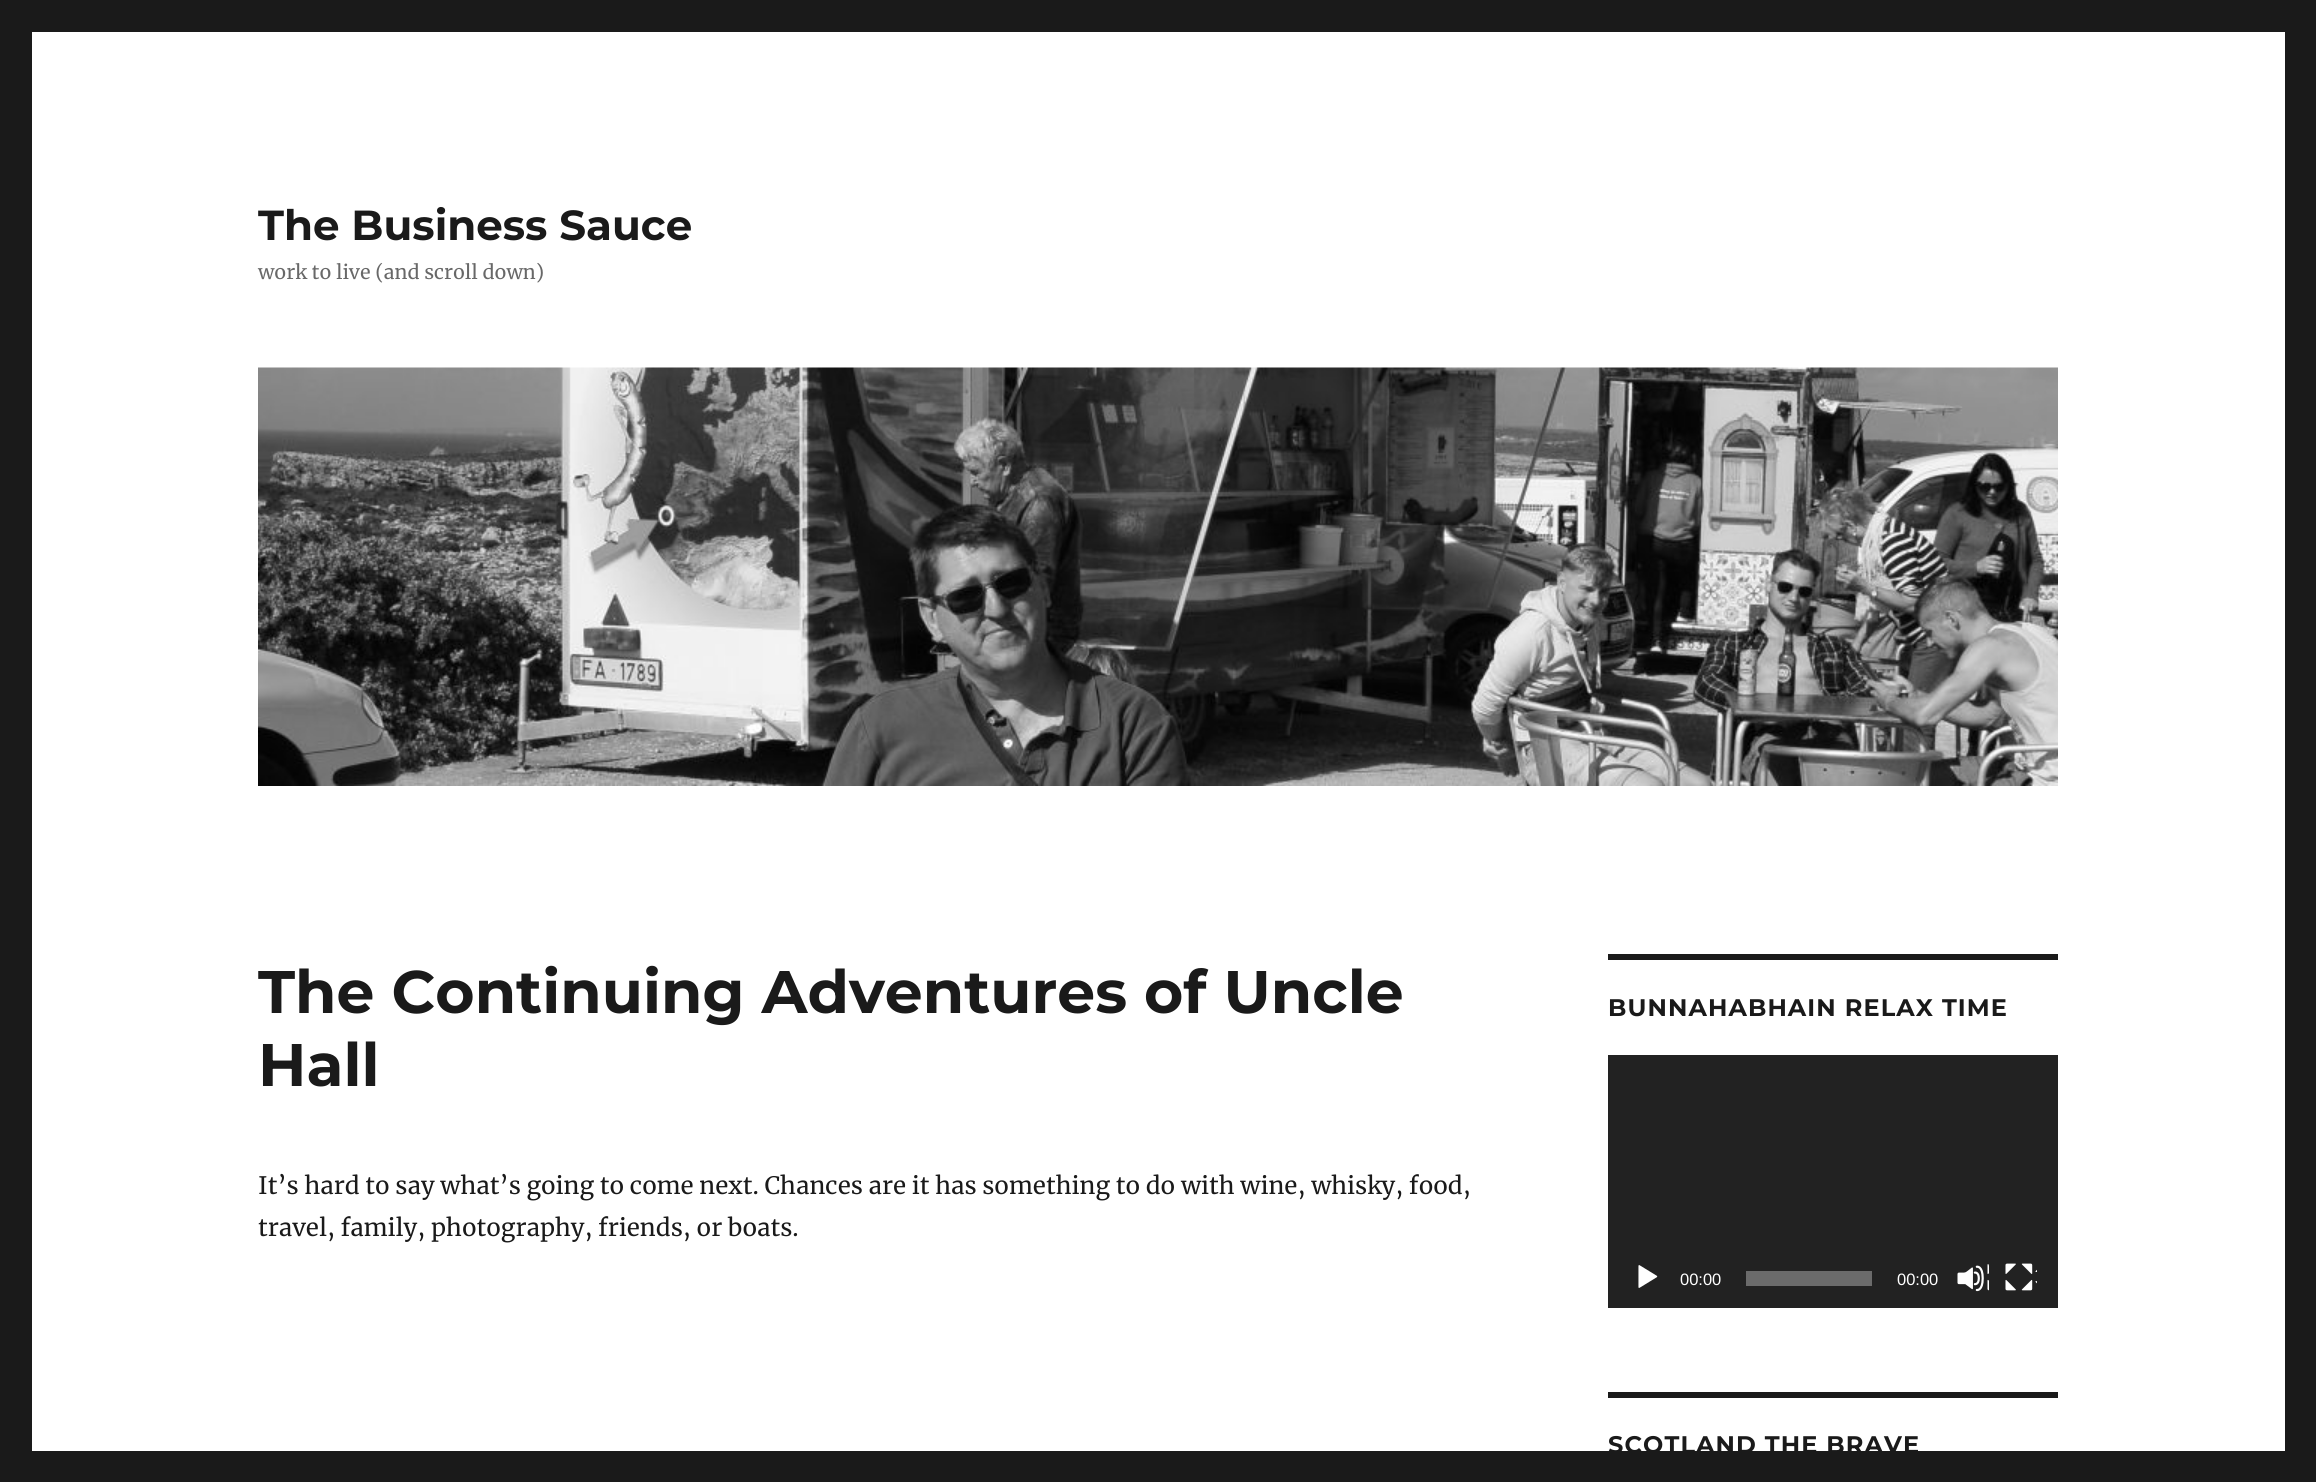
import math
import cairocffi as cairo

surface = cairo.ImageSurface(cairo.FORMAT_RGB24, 2316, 1482)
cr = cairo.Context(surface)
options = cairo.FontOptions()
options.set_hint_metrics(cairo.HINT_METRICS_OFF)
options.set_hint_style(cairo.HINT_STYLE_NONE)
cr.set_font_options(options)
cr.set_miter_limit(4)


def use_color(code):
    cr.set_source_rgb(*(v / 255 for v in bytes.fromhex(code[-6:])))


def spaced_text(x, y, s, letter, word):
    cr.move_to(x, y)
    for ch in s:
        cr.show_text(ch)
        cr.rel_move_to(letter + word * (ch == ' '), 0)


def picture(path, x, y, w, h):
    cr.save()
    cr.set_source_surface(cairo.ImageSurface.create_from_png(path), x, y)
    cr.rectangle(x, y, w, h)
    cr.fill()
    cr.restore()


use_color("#1a1a1a")
cr.paint()
use_color("#ffffff")
cr.rectangle(32, 32, 2253, 1419)
cr.fill()
cr.select_font_face("Montserrat Thin")
cr.set_font_size(42)
use_color("#1a1a1a")
cr.move_to(258, 240)
cr.show_text("The Business Sauce")
cr.select_font_face("Merriweather")
cr.set_font_size(19.5)
use_color("#686868")
cr.move_to(258, 279)
cr.show_text("work to live (and scroll down)")
picture("img1.png", 258, 367, 1800, 419)
cr.select_font_face("Montserrat Thin")
cr.set_font_size(60)
use_color("#1a1a1a")
cr.move_to(258, 1013)
cr.show_text("The Continuing Adventures of Uncle")
cr.move_to(258, 1086)
cr.show_text("Hall")
cr.select_font_face("Merriweather")
cr.set_font_size(24)
cr.move_to(258, 1194)
cr.show_text("It’s hard to say what’s going to come next. Chances are it has something to do with wine, whisky, food,")
cr.move_to(258, 1236)
cr.show_text("travel, family, photography, friends, or boats.")
cr.rectangle(1608, 954, 450, 6)
cr.fill()
cr.select_font_face("Montserrat Thin")
spaced_text(1608, 1016, "BUNNAHABHAIN RELAX TIME", 1.1, 0)
use_color("#222222")
cr.rectangle(1608, 1055, 450, 253)
cr.fill()
picture("img2.png", 1638, 1265, 20, 23)
cr.select_font_face("Liberation Sans")
cr.set_font_size(16.5)
use_color("#ffffff")
cr.move_to(1680, 1285)
cr.show_text("00:00")
use_color("#6b6b6b")
cr.rectangle(1746, 1271, 126, 15)
cr.fill()
use_color("#ffffff")
cr.move_to(1897, 1285)
cr.show_text("00:00")
picture("img3.png", 1957, 1264, 32, 28)
picture("img4.png", 2005, 1263, 32, 28)
use_color("#1a1a1a")
cr.rectangle(1608, 1392, 450, 6)
cr.fill()
cr.select_font_face("Montserrat Thin")
cr.set_font_size(24)
spaced_text(1608, 1453, "SCOTLAND THE BRAVE", 1.1, 0)
surface.write_to_png("result.png")
